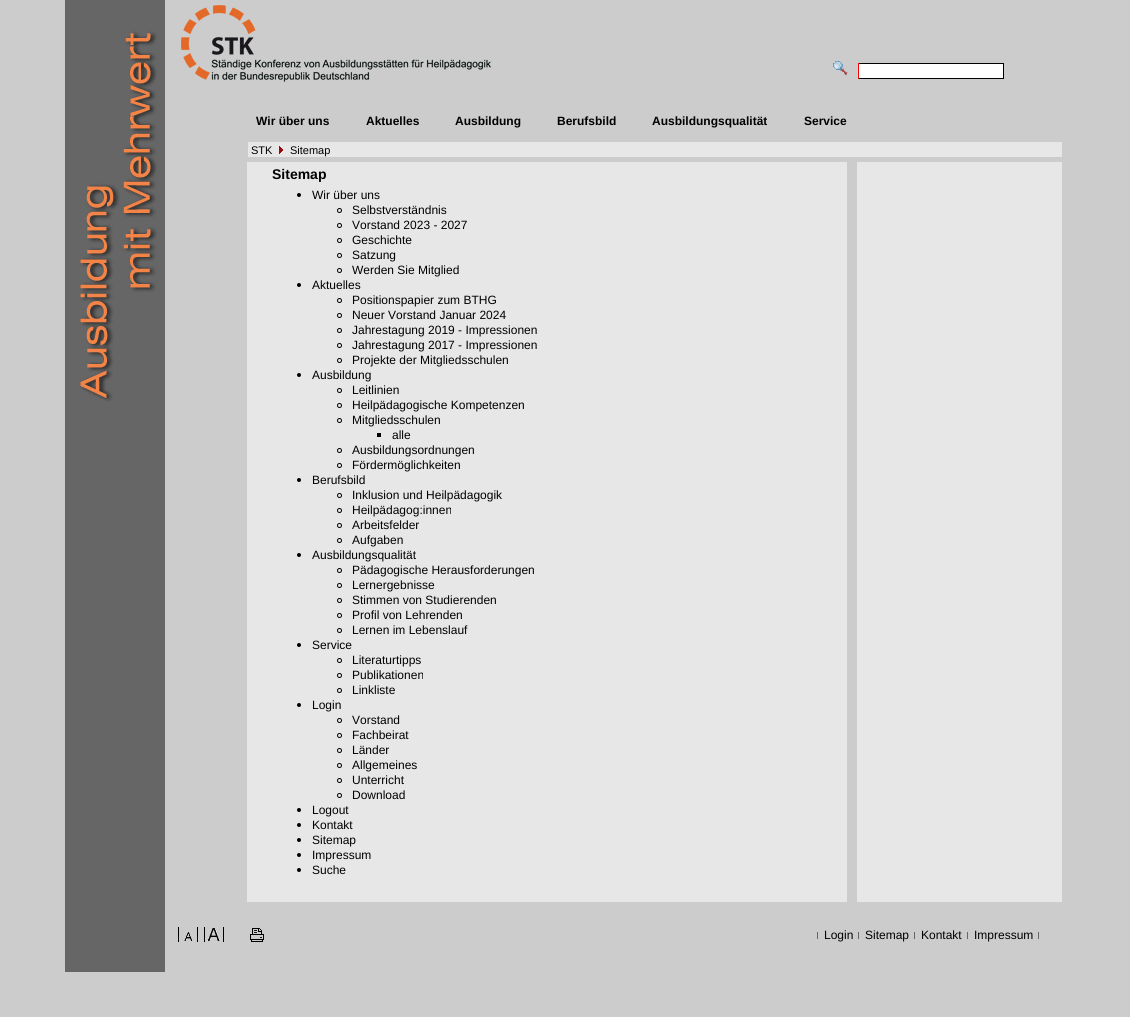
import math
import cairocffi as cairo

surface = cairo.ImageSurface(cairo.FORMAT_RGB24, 1130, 1017)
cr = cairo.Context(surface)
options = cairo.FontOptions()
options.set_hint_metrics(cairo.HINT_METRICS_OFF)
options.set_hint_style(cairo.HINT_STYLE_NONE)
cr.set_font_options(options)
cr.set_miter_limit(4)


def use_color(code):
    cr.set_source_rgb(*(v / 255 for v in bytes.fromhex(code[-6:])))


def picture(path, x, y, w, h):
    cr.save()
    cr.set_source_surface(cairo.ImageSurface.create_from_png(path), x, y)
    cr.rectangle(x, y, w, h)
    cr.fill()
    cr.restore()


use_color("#cccccc")
cr.paint()
use_color("#666666")
cr.rectangle(65, 0, 100, 972)
cr.fill()
picture("img1.png", 80, 31, 77, 371)
picture("img2.png", 181, 1, 310, 81)
picture("img3.png", 833, 61, 15, 14)
use_color("#ffffff")
cr.rectangle(859, 64, 144, 14)
cr.fill()
use_color("#000000")
cr.rectangle(858, 63, 146, 1)
cr.fill()
cr.rectangle(1003, 63, 1, 16)
cr.fill()
cr.rectangle(858, 78, 146, 1)
cr.fill()
use_color("#ff0000")
cr.rectangle(858, 63, 1, 16)
cr.fill()
cr.select_font_face("Liberation Sans", cairo.FONT_SLANT_NORMAL, cairo.FONT_WEIGHT_BOLD)
cr.set_font_size(12)
use_color("#000000")
cr.move_to(256, 125)
cr.show_text("Wir über uns")
cr.move_to(366, 125)
cr.show_text("Aktuelles")
cr.move_to(455, 125)
cr.show_text("Ausbildung")
cr.move_to(557, 125)
cr.show_text("Berufsbild")
cr.move_to(652, 125)
cr.show_text("Ausbildungsqualität")
cr.move_to(804, 125)
cr.show_text("Service")
use_color("#e7e7e7")
cr.rectangle(248, 142, 814, 15)
cr.fill()
cr.select_font_face("Liberation Sans")
cr.set_font_size(11)
use_color("#000000")
cr.move_to(251, 154)
cr.show_text("STK")
picture("img4.png", 279, 146, 4, 8)
cr.move_to(290, 154)
cr.show_text("Sitemap")
use_color("#e7e7e7")
cr.rectangle(247, 162, 815, 740)
cr.fill()
use_color("#cccccc")
cr.rectangle(847, 162, 10, 740)
cr.fill()
cr.select_font_face("Liberation Sans", cairo.FONT_SLANT_NORMAL, cairo.FONT_WEIGHT_BOLD)
cr.set_font_size(14)
use_color("#000000")
cr.move_to(272, 179)
cr.show_text("Sitemap")
cr.new_path()
cr.arc(299, 195, 2, 0, 2 * math.pi)
cr.fill()
cr.select_font_face("Liberation Sans")
cr.set_font_size(12)
cr.move_to(312, 199)
cr.show_text("Wir über uns")
cr.new_path()
cr.arc(339.5, 210.5, 2, 0, 2 * math.pi)
cr.set_line_width(1)
cr.stroke()
cr.move_to(352, 214)
cr.show_text("Selbstverständnis")
cr.new_path()
cr.arc(339.5, 225.5, 2, 0, 2 * math.pi)
cr.stroke()
cr.move_to(352, 229)
cr.show_text("Vorstand 2023 - 2027")
cr.new_path()
cr.arc(339.5, 240.5, 2, 0, 2 * math.pi)
cr.stroke()
cr.move_to(352, 244)
cr.show_text("Geschichte")
cr.new_path()
cr.arc(339.5, 255.5, 2, 0, 2 * math.pi)
cr.stroke()
cr.move_to(352, 259)
cr.show_text("Satzung")
cr.new_path()
cr.arc(339.5, 270.5, 2, 0, 2 * math.pi)
cr.stroke()
cr.move_to(352, 274)
cr.show_text("Werden Sie Mitglied")
cr.new_path()
cr.arc(299, 285, 2, 0, 2 * math.pi)
cr.fill()
cr.move_to(312, 289)
cr.show_text("Aktuelles")
cr.new_path()
cr.arc(339.5, 300.5, 2, 0, 2 * math.pi)
cr.stroke()
cr.move_to(352, 304)
cr.show_text("Positionspapier zum BTHG")
cr.new_path()
cr.arc(339.5, 315.5, 2, 0, 2 * math.pi)
cr.stroke()
cr.move_to(352, 319)
cr.show_text("Neuer Vorstand Januar 2024")
cr.new_path()
cr.arc(339.5, 330.5, 2, 0, 2 * math.pi)
cr.stroke()
cr.move_to(352, 334)
cr.show_text("Jahrestagung 2019 - Impressionen")
cr.new_path()
cr.arc(339.5, 345.5, 2, 0, 2 * math.pi)
cr.stroke()
cr.move_to(352, 349)
cr.show_text("Jahrestagung 2017 - Impressionen")
cr.new_path()
cr.arc(339.5, 360.5, 2, 0, 2 * math.pi)
cr.stroke()
cr.move_to(352, 364)
cr.show_text("Projekte der Mitgliedsschulen")
cr.new_path()
cr.arc(299, 375, 2, 0, 2 * math.pi)
cr.fill()
cr.move_to(312, 379)
cr.show_text("Ausbildung")
cr.new_path()
cr.arc(339.5, 390.5, 2, 0, 2 * math.pi)
cr.stroke()
cr.move_to(352, 394)
cr.show_text("Leitlinien")
cr.new_path()
cr.arc(339.5, 405.5, 2, 0, 2 * math.pi)
cr.stroke()
cr.move_to(352, 409)
cr.show_text("Heilpädagogische Kompetenzen")
cr.new_path()
cr.arc(339.5, 420.5, 2, 0, 2 * math.pi)
cr.stroke()
cr.move_to(352, 424)
cr.show_text("Mitgliedsschulen")
cr.rectangle(377, 433, 4, 4)
cr.fill()
cr.move_to(392, 439)
cr.show_text("alle")
cr.new_path()
cr.arc(339.5, 450.5, 2, 0, 2 * math.pi)
cr.stroke()
cr.move_to(352, 454)
cr.show_text("Ausbildungsordnungen")
cr.new_path()
cr.arc(339.5, 465.5, 2, 0, 2 * math.pi)
cr.stroke()
cr.move_to(352, 469)
cr.show_text("Fördermöglichkeiten")
cr.new_path()
cr.arc(299, 480, 2, 0, 2 * math.pi)
cr.fill()
cr.move_to(312, 484)
cr.show_text("Berufsbild")
cr.new_path()
cr.arc(339.5, 495.5, 2, 0, 2 * math.pi)
cr.stroke()
cr.move_to(352, 499)
cr.show_text("Inklusion und Heilpädagogik")
cr.new_path()
cr.arc(339.5, 510.5, 2, 0, 2 * math.pi)
cr.stroke()
cr.move_to(352, 514)
cr.show_text("Heilpädagog:innen")
cr.new_path()
cr.arc(339.5, 525.5, 2, 0, 2 * math.pi)
cr.stroke()
cr.move_to(352, 529)
cr.show_text("Arbeitsfelder")
cr.new_path()
cr.arc(339.5, 540.5, 2, 0, 2 * math.pi)
cr.stroke()
cr.move_to(352, 544)
cr.show_text("Aufgaben")
cr.new_path()
cr.arc(299, 555, 2, 0, 2 * math.pi)
cr.fill()
cr.move_to(312, 559)
cr.show_text("Ausbildungsqualität")
cr.new_path()
cr.arc(339.5, 570.5, 2, 0, 2 * math.pi)
cr.stroke()
cr.move_to(352, 574)
cr.show_text("Pädagogische Herausforderungen")
cr.new_path()
cr.arc(339.5, 585.5, 2, 0, 2 * math.pi)
cr.stroke()
cr.move_to(352, 589)
cr.show_text("Lernergebnisse")
cr.new_path()
cr.arc(339.5, 600.5, 2, 0, 2 * math.pi)
cr.stroke()
cr.move_to(352, 604)
cr.show_text("Stimmen von Studierenden")
cr.new_path()
cr.arc(339.5, 615.5, 2, 0, 2 * math.pi)
cr.stroke()
cr.move_to(352, 619)
cr.show_text("Profil von Lehrenden")
cr.new_path()
cr.arc(339.5, 630.5, 2, 0, 2 * math.pi)
cr.stroke()
cr.move_to(352, 634)
cr.show_text("Lernen im Lebenslauf")
cr.new_path()
cr.arc(299, 645, 2, 0, 2 * math.pi)
cr.fill()
cr.move_to(312, 649)
cr.show_text("Service")
cr.new_path()
cr.arc(339.5, 660.5, 2, 0, 2 * math.pi)
cr.stroke()
cr.move_to(352, 664)
cr.show_text("Literaturtipps")
cr.new_path()
cr.arc(339.5, 675.5, 2, 0, 2 * math.pi)
cr.stroke()
cr.move_to(352, 679)
cr.show_text("Publikationen")
cr.new_path()
cr.arc(339.5, 690.5, 2, 0, 2 * math.pi)
cr.stroke()
cr.move_to(352, 694)
cr.show_text("Linkliste")
cr.new_path()
cr.arc(299, 705, 2, 0, 2 * math.pi)
cr.fill()
cr.move_to(312, 709)
cr.show_text("Login")
cr.new_path()
cr.arc(339.5, 720.5, 2, 0, 2 * math.pi)
cr.stroke()
cr.move_to(352, 724)
cr.show_text("Vorstand")
cr.new_path()
cr.arc(339.5, 735.5, 2, 0, 2 * math.pi)
cr.stroke()
cr.move_to(352, 739)
cr.show_text("Fachbeirat")
cr.new_path()
cr.arc(339.5, 750.5, 2, 0, 2 * math.pi)
cr.stroke()
cr.move_to(352, 754)
cr.show_text("Länder")
cr.new_path()
cr.arc(339.5, 765.5, 2, 0, 2 * math.pi)
cr.stroke()
cr.move_to(352, 769)
cr.show_text("Allgemeines")
cr.new_path()
cr.arc(339.5, 780.5, 2, 0, 2 * math.pi)
cr.stroke()
cr.move_to(352, 784)
cr.show_text("Unterricht")
cr.new_path()
cr.arc(339.5, 795.5, 2, 0, 2 * math.pi)
cr.stroke()
cr.move_to(352, 799)
cr.show_text("Download")
cr.new_path()
cr.arc(299, 810, 2, 0, 2 * math.pi)
cr.fill()
cr.move_to(312, 814)
cr.show_text("Logout")
cr.new_path()
cr.arc(299, 825, 2, 0, 2 * math.pi)
cr.fill()
cr.move_to(312, 829)
cr.show_text("Kontakt")
cr.new_path()
cr.arc(299, 840, 2, 0, 2 * math.pi)
cr.fill()
cr.move_to(312, 844)
cr.show_text("Sitemap")
cr.new_path()
cr.arc(299, 855, 2, 0, 2 * math.pi)
cr.fill()
cr.move_to(312, 859)
cr.show_text("Impressum")
cr.new_path()
cr.arc(299, 870, 2, 0, 2 * math.pi)
cr.fill()
cr.move_to(312, 874)
cr.show_text("Suche")
picture("img5.png", 178, 927, 20, 15)
picture("img6.png", 204, 927, 20, 15)
picture("img7.png", 250, 928, 14, 14)
use_color("#666666")
cr.rectangle(817, 932, 1, 7)
cr.fill()
use_color("#000000")
cr.move_to(824, 939)
cr.show_text("Login")
use_color("#666666")
cr.rectangle(858, 932, 1, 7)
cr.fill()
use_color("#000000")
cr.move_to(865, 939)
cr.show_text("Sitemap")
use_color("#666666")
cr.rectangle(914, 932, 1, 7)
cr.fill()
use_color("#000000")
cr.move_to(921, 939)
cr.show_text("Kontakt")
use_color("#666666")
cr.rectangle(967, 932, 1, 7)
cr.fill()
use_color("#000000")
cr.move_to(974, 939)
cr.show_text("Impressum")
use_color("#666666")
cr.rectangle(1038, 932, 1, 7)
cr.fill()
surface.write_to_png("result.png")
